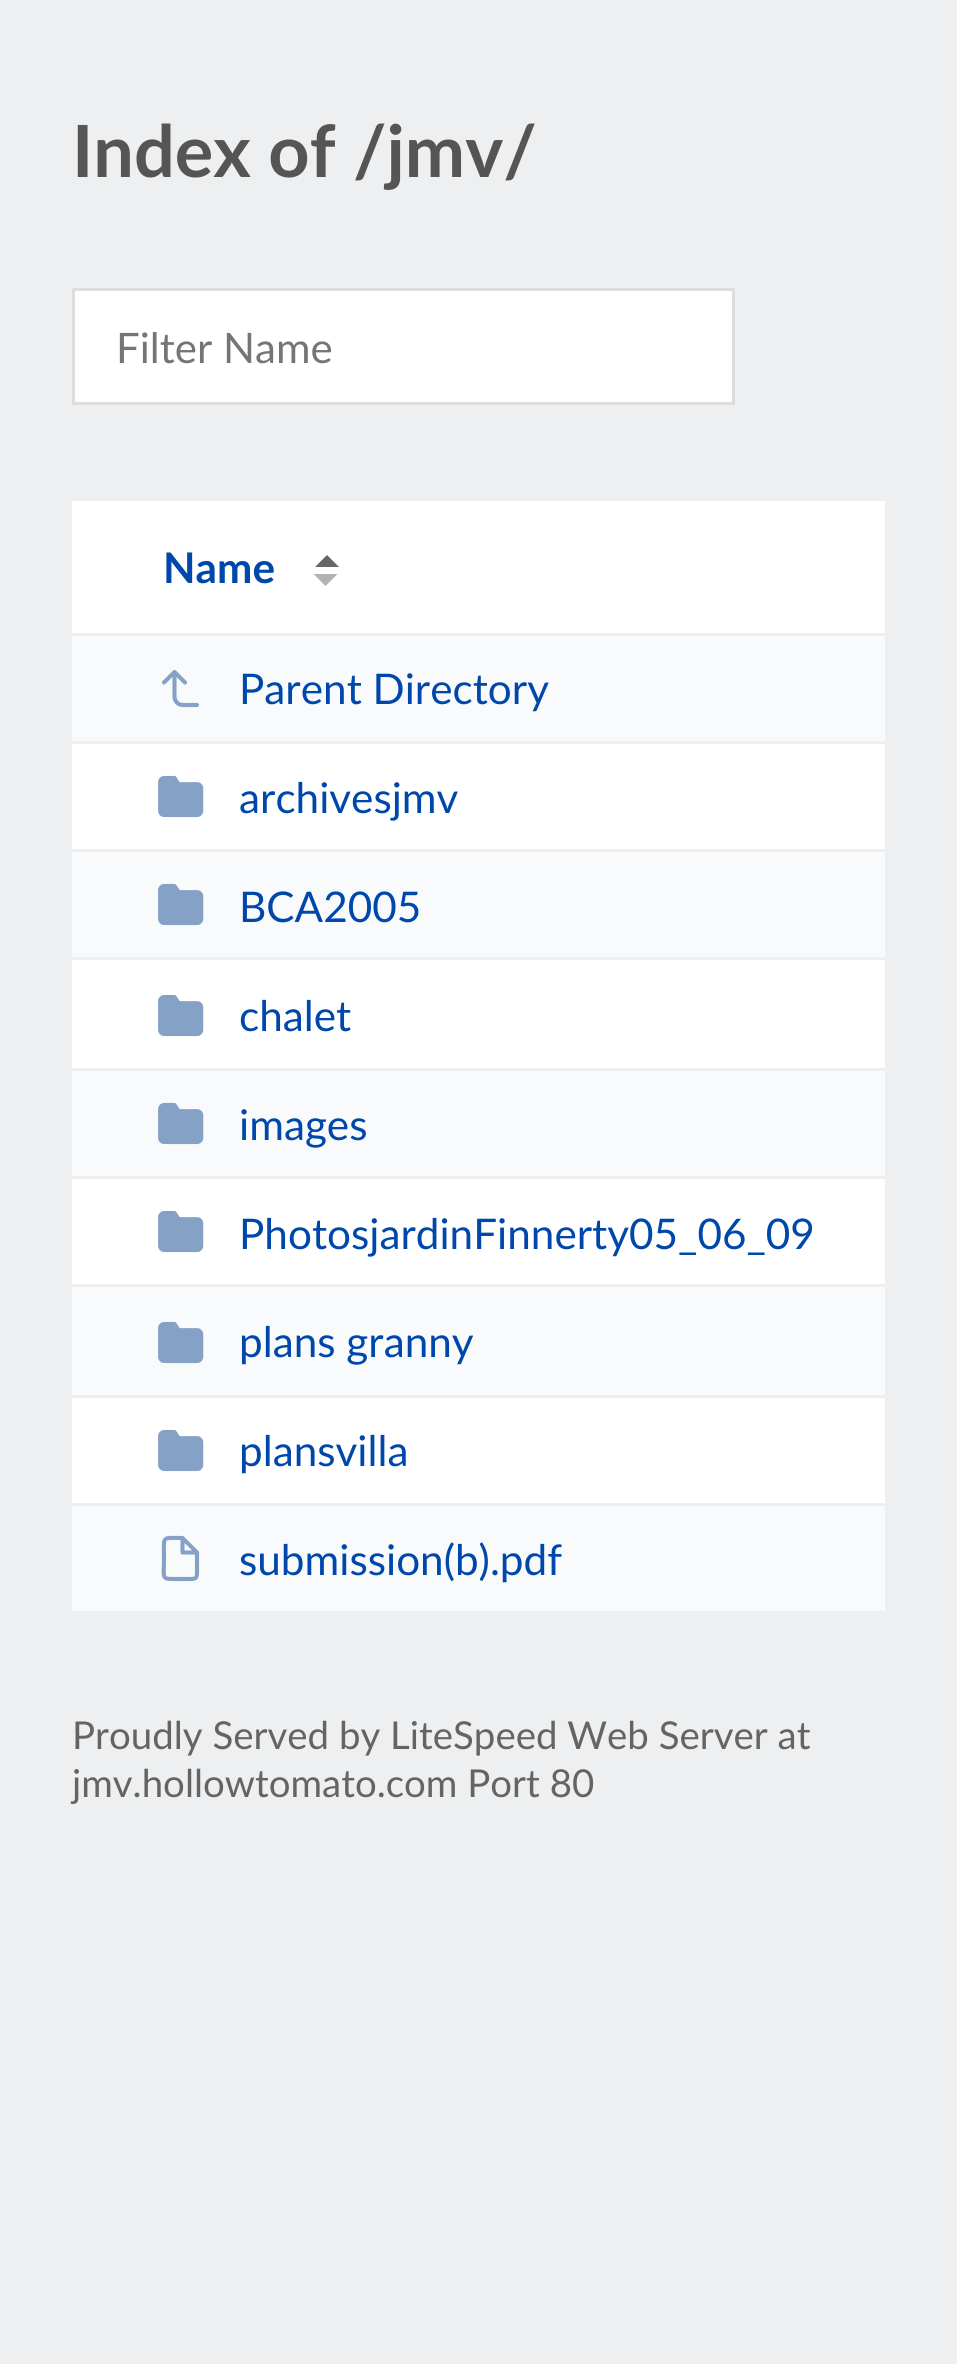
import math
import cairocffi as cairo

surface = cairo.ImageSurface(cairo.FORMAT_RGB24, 957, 2364)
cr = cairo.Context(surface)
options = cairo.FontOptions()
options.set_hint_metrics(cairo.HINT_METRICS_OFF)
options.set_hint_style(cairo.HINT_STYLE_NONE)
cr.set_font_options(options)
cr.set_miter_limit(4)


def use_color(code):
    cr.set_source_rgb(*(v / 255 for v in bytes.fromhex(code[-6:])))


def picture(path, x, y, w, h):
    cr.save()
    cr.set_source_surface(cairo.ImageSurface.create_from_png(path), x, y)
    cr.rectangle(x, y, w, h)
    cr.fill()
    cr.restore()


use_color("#edeff0")
cr.paint()
cr.select_font_face("Lato", cairo.FONT_SLANT_NORMAL, cairo.FONT_WEIGHT_BOLD)
cr.set_font_size(72)
use_color("#555555")
cr.move_to(72, 177)
cr.show_text("Index of /jmv/")
use_color("#ffffff")
cr.rectangle(73.5, 289.5, 660, 114)
cr.fill_preserve()
use_color("#dddddd")
cr.set_line_width(3)
cr.stroke()
cr.select_font_face("Lato")
cr.set_font_size(42)
use_color("#757575")
cr.move_to(116, 363)
cr.show_text("Filter Name")
use_color("#ffffff")
cr.rectangle(72, 501, 813, 1002)
cr.fill()
cr.select_font_face("Lato", cairo.FONT_SLANT_NORMAL, cairo.FONT_WEIGHT_BOLD)
cr.set_font_size(42.25)
use_color("#0047ab")
cr.move_to(163, 583)
cr.show_text("Name")
use_color("#666666")
cr.new_path()
cr.move_to(339, 567)
cr.line_to(315, 567)
cr.line_to(327, 555)
cr.close_path()
cr.fill()
use_color("#b3b3b3")
cr.new_path()
cr.move_to(313.5, 574)
cr.line_to(337.5, 574)
cr.line_to(325.5, 586)
cr.close_path()
cr.fill()
use_color("#f8fafb")
cr.rectangle(72, 636, 813, 105)
cr.fill()
use_color("#edeff0")
cr.rectangle(72, 633, 813, 3)
cr.fill()
cr.rectangle(72, 741, 813, 3)
cr.fill()
cr.new_path()
cr.move_to(185, 682.5)
cr.line_to(174.5, 672)
cr.line_to(164, 682.5)
cr.move_to(197, 705)
cr.line_to(182.5, 705)
cr.curve_to(178, 705, 174.5, 701, 174.5, 696.5)
cr.line_to(174.5, 672)
use_color("#86a1c6")
cr.set_line_width(4.1)
cr.set_line_cap(cairo.LINE_CAP_ROUND)
cr.set_line_join(cairo.LINE_JOIN_ROUND)
cr.stroke()
cr.select_font_face("Lato")
use_color("#0047ab")
cr.move_to(239, 704)
cr.show_text("Parent Directory")
picture("img1.png", 158, 775, 46, 43)
cr.move_to(239, 813)
cr.show_text("archivesjmv")
use_color("#f8fafb")
cr.rectangle(72, 852, 813, 105)
cr.fill()
use_color("#edeff0")
cr.rectangle(72, 849, 813, 3)
cr.fill()
cr.rectangle(72, 957, 813, 3)
cr.fill()
picture("img2.png", 158, 883, 46, 43)
use_color("#0047ab")
cr.move_to(239, 922)
cr.show_text("BCA2005")
picture("img1.png", 158, 994, 46, 43)
cr.move_to(239, 1031)
cr.show_text("chalet")
use_color("#f8fafb")
cr.rectangle(72, 1071, 813, 105)
cr.fill()
use_color("#edeff0")
cr.rectangle(72, 1068, 813, 3)
cr.fill()
cr.rectangle(72, 1176, 813, 3)
cr.fill()
picture("img2.png", 158, 1102, 46, 43)
use_color("#0047ab")
cr.move_to(239, 1140)
cr.show_text("images")
picture("img1.png", 158, 1210, 46, 43)
cr.move_to(239, 1249)
cr.show_text("PhotosjardinFinnerty05_06_09")
use_color("#f8fafb")
cr.rectangle(72, 1287, 813, 108)
cr.fill()
use_color("#edeff0")
cr.rectangle(72, 1284, 813, 3)
cr.fill()
cr.rectangle(72, 1395, 813, 3)
cr.fill()
picture("img2.png", 158, 1321, 46, 43)
use_color("#0047ab")
cr.move_to(239, 1357)
cr.show_text("plans granny")
picture("img1.png", 158, 1429, 46, 43)
cr.move_to(239, 1466)
cr.show_text("plansvilla")
use_color("#f8fafb")
cr.rectangle(72, 1506, 813, 105)
cr.fill()
cr.new_path()
cr.move_to(182.5, 1538)
cr.curve_to(161, 1538, 164, 1535, 164, 1558.5)
cr.curve_to(164, 1580.5, 160, 1579, 180.5, 1579)
cr.line_to(189, 1579)
cr.curve_to(196.5, 1579, 197, 1578.5, 197, 1571)
cr.line_to(197, 1552.5)
cr.close_path()
cr.move_to(182.5, 1538)
cr.line_to(182.5, 1552.5)
cr.line_to(197, 1552.5)
use_color("#86a1c6")
cr.stroke()
use_color("#0047ab")
cr.move_to(239, 1575)
cr.show_text("submission(b).pdf")
cr.set_font_size(38.4)
use_color("#646464")
cr.move_to(72, 1749)
cr.show_text("Proudly Served by LiteSpeed Web Server at")
cr.move_to(72, 1797)
cr.show_text("jmv.hollowtomato.com Port 80")
surface.write_to_png("result.png")
